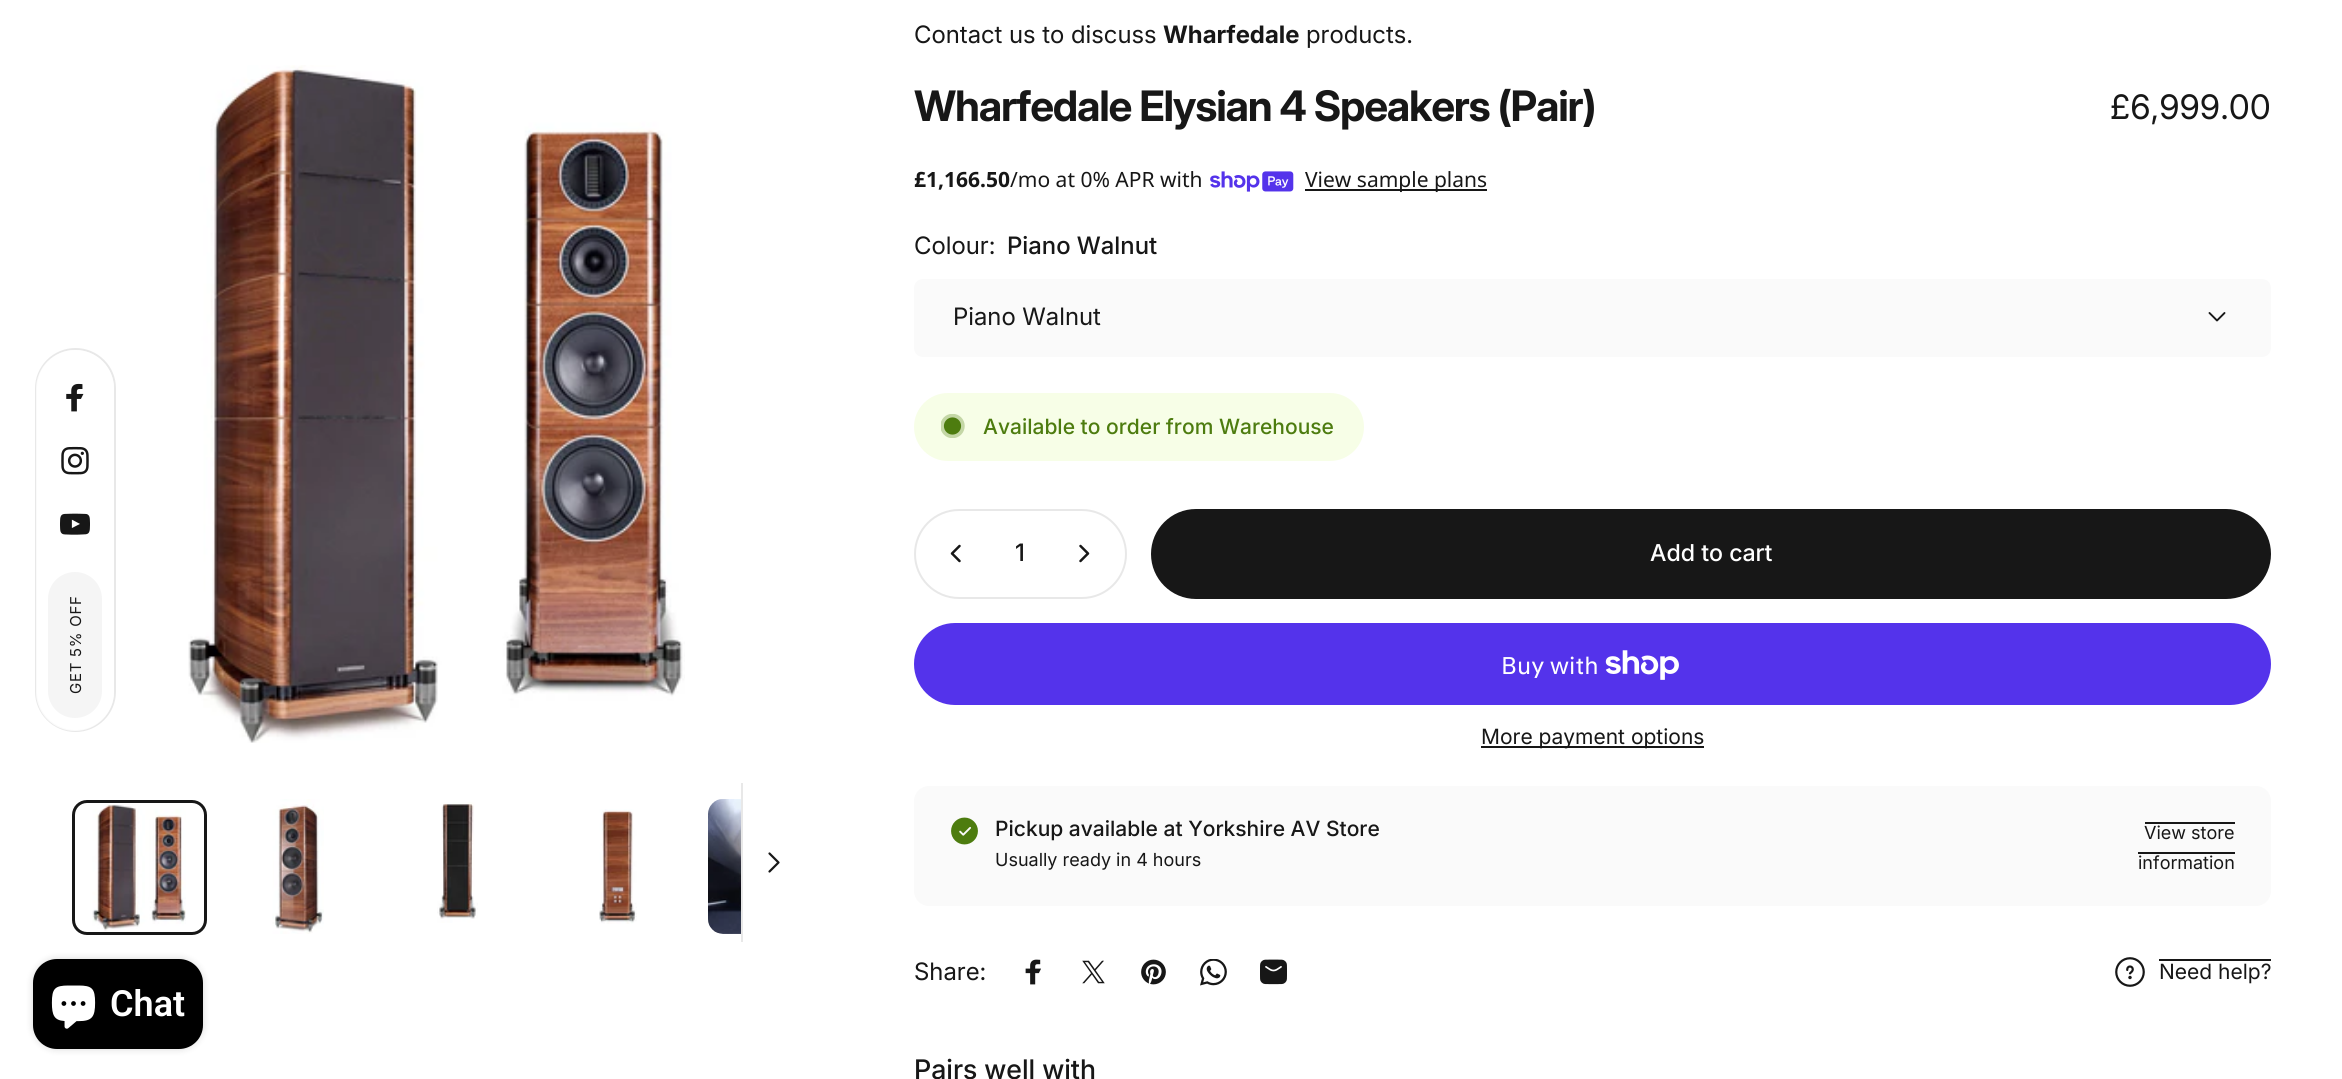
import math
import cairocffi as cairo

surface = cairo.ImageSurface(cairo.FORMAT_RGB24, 2342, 1079)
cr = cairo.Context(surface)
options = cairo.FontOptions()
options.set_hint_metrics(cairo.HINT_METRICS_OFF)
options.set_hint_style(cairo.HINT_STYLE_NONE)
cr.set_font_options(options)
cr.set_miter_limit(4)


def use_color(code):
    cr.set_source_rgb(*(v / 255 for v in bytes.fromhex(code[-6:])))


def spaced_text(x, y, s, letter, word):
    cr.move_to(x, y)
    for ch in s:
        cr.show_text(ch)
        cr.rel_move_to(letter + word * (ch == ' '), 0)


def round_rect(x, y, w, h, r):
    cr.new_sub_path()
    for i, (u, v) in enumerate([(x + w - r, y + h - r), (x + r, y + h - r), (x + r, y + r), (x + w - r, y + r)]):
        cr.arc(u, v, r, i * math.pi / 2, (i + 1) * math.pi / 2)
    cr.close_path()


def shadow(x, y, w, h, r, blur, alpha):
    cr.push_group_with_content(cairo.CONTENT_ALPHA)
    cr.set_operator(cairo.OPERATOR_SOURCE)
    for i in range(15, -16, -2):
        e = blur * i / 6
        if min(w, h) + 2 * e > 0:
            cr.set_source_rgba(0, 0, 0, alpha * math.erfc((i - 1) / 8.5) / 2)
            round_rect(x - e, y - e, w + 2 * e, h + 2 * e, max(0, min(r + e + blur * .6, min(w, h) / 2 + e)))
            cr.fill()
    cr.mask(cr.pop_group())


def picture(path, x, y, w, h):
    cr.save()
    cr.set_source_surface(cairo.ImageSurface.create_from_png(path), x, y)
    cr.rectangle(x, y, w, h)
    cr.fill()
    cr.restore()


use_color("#ffffff")
cr.paint()
round_rect(36, 349, 79, 382, 39.5)
use_color("#e8e8e8")
cr.stroke()
cr.set_source_rgba(1, 1, 1, 0.8)
round_rect(36, 350, 78, 381, 39)
cr.fill()
picture("img1.png", 66, 383, 18, 29)
picture("img2.png", 61, 446, 28, 29)
picture("img3.png", 60, 513, 30, 22)
use_color("#f5f5f5")
cr.new_path()
cr.move_to(75, 718)
cr.curve_to(60, 718, 48, 706, 48, 691)
cr.line_to(48, 599)
cr.curve_to(48, 584, 60, 572, 75, 572)
cr.curve_to(90, 572, 102, 584, 102, 599)
cr.line_to(102, 691)
cr.curve_to(102, 706, 90, 718, 75, 718)
cr.close_path()
cr.fill()
cr.select_font_face("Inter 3")
cr.set_font_size(15)
use_color("#171717")
cr.save()
cr.translate(81, 694)
cr.rotate(-90 * math.pi / 180)
spaced_text(0, 0, "GET 5% OFF", 0.75, 0)
cr.restore()
picture("img4.png", 188, 65, 497, 678)
picture("img5.png", 92, 804, 94, 128)
round_rect(73.5, 801.5, 132, 132, 13.5)
cr.set_line_width(3)
cr.stroke()
picture("img6.png", 272, 799, 52, 135)
picture("img7.png", 437, 802, 41, 121)
picture("img8.png", 599, 809, 38, 115)
picture("img9.png", 708, 799, 33, 135)
use_color("#e8e8e8")
cr.rectangle(741, 783, 2, 159)
cr.fill()
cr.new_path()
cr.move_to(769.5, 853.5)
cr.line_to(778.5, 862.5)
cr.line_to(769.5, 871.5)
use_color("#171717")
cr.set_line_width(2.2)
cr.set_line_cap(cairo.LINE_CAP_ROUND)
cr.set_line_join(cairo.LINE_JOIN_ROUND)
cr.stroke()
cr.select_font_face("Inter")
cr.set_font_size(24)
cr.move_to(914, 43)
cr.show_text("Contact us to discuss")
cr.select_font_face("Inter", cairo.FONT_SLANT_NORMAL, cairo.FONT_WEIGHT_BOLD)
cr.move_to(1163, 43)
cr.show_text("Wharfedale")
cr.select_font_face("Inter")
cr.move_to(1306, 43)
cr.show_text("products.")
cr.select_font_face("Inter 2", cairo.FONT_SLANT_NORMAL, cairo.FONT_WEIGHT_BOLD)
cr.set_font_size(42)
spaced_text(914, 121, "Wharfedale Elysian 4 Speakers (Pair)", -1.25, 0)
cr.select_font_face("Inter 2")
cr.set_font_size(33.75)
cr.move_to(2110, 119)
cr.show_text("£6,999.00")
cr.select_font_face("Noto Sans", cairo.FONT_SLANT_NORMAL, cairo.FONT_WEIGHT_BOLD)
cr.set_font_size(21)
cr.move_to(914, 187)
cr.show_text("£1,166.50")
cr.select_font_face("Noto Sans")
cr.move_to(1010, 187)
cr.show_text("/mo at 0% APR with")
picture("img10.png", 1210, 171, 84, 21)
cr.rectangle(1305, 189, 182, 2)
cr.fill()
cr.move_to(1305, 187)
cr.show_text("View sample plans")
cr.select_font_face("Inter")
cr.set_font_size(24)
cr.move_to(914, 254)
cr.show_text("Colour:")
cr.select_font_face("Inter Medium")
cr.move_to(1007, 254)
cr.show_text("Piano Walnut")
use_color("#fafafa")
round_rect(914, 279, 1357, 78, 9)
cr.fill()
cr.select_font_face("Inter")
use_color("#171717")
cr.move_to(953, 325)
cr.show_text("Piano Walnut")
cr.new_path()
cr.move_to(2209.5, 313)
cr.line_to(2217, 320.5)
cr.line_to(2224.5, 313)
cr.set_line_width(1.9)
cr.stroke()
use_color("#f7fee7")
round_rect(914, 393, 450, 68, 34)
cr.fill()
use_color("#4d7c0f")
cr.arc(952.5, 426, 7.5, 0, 2 * math.pi)
cr.fill_preserve()
cr.set_line_width(2.2)
cr.set_line_cap(cairo.LINE_CAP_BUTT)
cr.set_line_join(cairo.LINE_JOIN_MITER)
cr.stroke()
cr.save()
cr.rectangle(941, 414, 24, 24)
cr.clip()
cr.arc(952.5, 426, 10, 0, 2 * math.pi)
cr.set_source_rgba(0.302, 0.486, 0.059, 0.3)
cr.set_line_width(4.5)
cr.stroke()
cr.restore()
cr.select_font_face("Inter 2 Medium")
cr.set_font_size(21)
cr.move_to(983, 434)
cr.show_text("Available to order from Warehouse")
round_rect(915, 510, 211, 88, 44)
use_color("#e8e8e8")
cr.set_line_width(2)
cr.stroke()
cr.new_path()
cr.move_to(959.5, 546)
cr.line_to(952, 553.5)
cr.line_to(959.5, 561)
use_color("#171717")
cr.set_line_width(2.5)
cr.set_line_cap(cairo.LINE_CAP_ROUND)
cr.set_line_join(cairo.LINE_JOIN_ROUND)
cr.stroke()
cr.select_font_face("Inter Medium")
cr.set_font_size(24)
cr.move_to(1015, 561)
cr.show_text("1")
cr.new_path()
cr.move_to(1080.5, 546)
cr.line_to(1088, 553.5)
cr.line_to(1080.5, 561)
cr.stroke()
round_rect(1152.5, 510.5, 1117, 87, 43.5)
cr.fill_preserve()
cr.set_line_width(3)
cr.set_line_cap(cairo.LINE_CAP_BUTT)
cr.set_line_join(cairo.LINE_JOIN_MITER)
cr.stroke()
cr.select_font_face("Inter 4 Medium")
cr.set_font_size(23.25)
use_color("#ffffff")
cr.move_to(1650, 561)
cr.show_text("Add to cart")
use_color("#5433eb")
round_rect(914, 623, 1357, 82, 41)
cr.fill()
cr.select_font_face("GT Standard")
cr.set_font_size(24)
use_color("#ffffff")
cr.move_to(1501, 674)
cr.show_text("Buy with")
picture("img11.png", 1605, 650, 74, 30)
use_color("#171717")
cr.rectangle(1481, 746, 223, 2)
cr.fill()
cr.select_font_face("Inter 3")
cr.set_font_size(21)
cr.move_to(1481, 744)
cr.show_text("More payment options")
use_color("#fafafa")
round_rect(914, 786, 1357, 120, 15)
cr.fill()
picture("img12.png", 951, 817, 27, 28)
cr.select_font_face("Inter 2 Medium")
use_color("#171717")
cr.move_to(995, 836)
cr.show_text("Pickup available at Yorkshire AV Store")
cr.select_font_face("Inter 3")
cr.set_font_size(18)
cr.move_to(995, 866)
cr.show_text("Usually ready in 4 hours")
cr.move_to(2144, 839)
cr.show_text("View store")
cr.rectangle(2145, 822, 90, 2)
cr.fill()
cr.move_to(2138, 869)
cr.show_text("information")
cr.rectangle(2138, 852, 97, 2)
cr.fill()
cr.select_font_face("Inter")
cr.set_font_size(24)
cr.move_to(914, 980)
cr.show_text("Share:")
picture("img13.png", 1025, 959, 16, 26)
picture("img14.png", 1082, 960, 23, 24)
picture("img15.png", 1141, 959, 25, 26)
picture("img16.png", 1200, 959, 27, 27)
picture("img17.png", 1260, 959, 27, 26)
picture("img18.png", 2115, 957, 30, 30)
cr.rectangle(2159, 959, 112, 2)
cr.fill()
cr.select_font_face("Inter 3")
cr.set_font_size(21)
cr.move_to(2159, 979)
cr.show_text("Need help?")
cr.select_font_face("Inter 3 Medium")
cr.set_font_size(27)
cr.move_to(914, 1079)
cr.show_text("Pairs well with")
use_color("#000000")
shadow(33, 959, 170, 90, 24, 4, 0.15)
use_color("#000000")
round_rect(33, 959, 170, 90, 24)
cr.fill()
picture("img19.png", 51, 985, 45, 44)
cr.select_font_face("Roboto SemiBold")
cr.set_font_size(36)
use_color("#ffffff")
cr.move_to(110, 1016)
cr.show_text("Chat")
surface.write_to_png("result.png")
